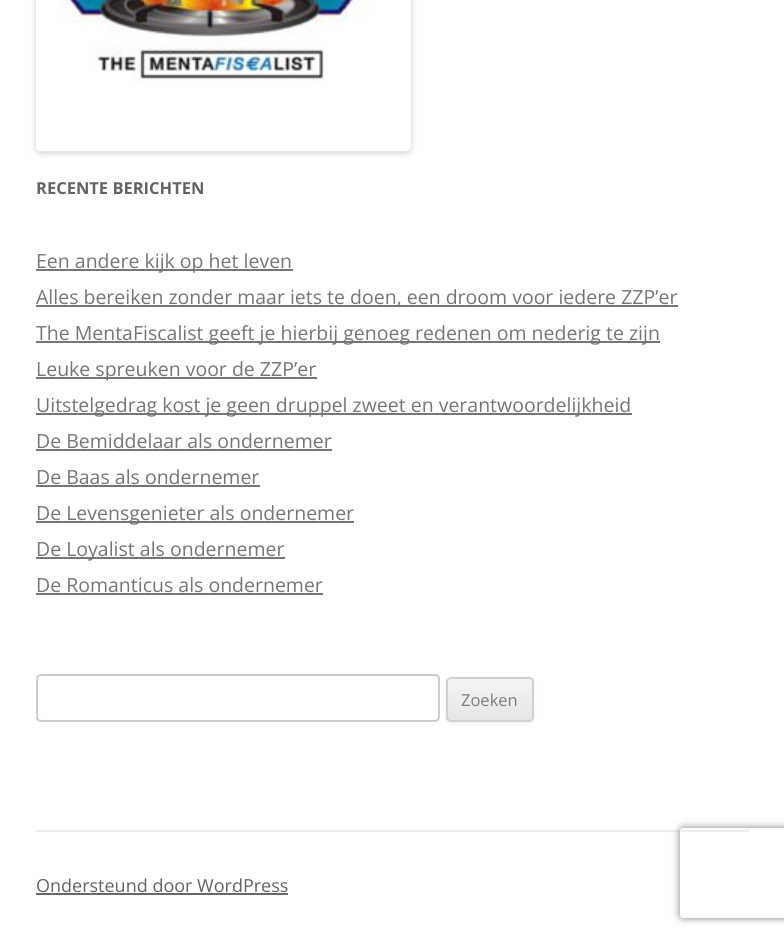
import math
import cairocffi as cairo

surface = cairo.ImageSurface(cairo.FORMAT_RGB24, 784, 939)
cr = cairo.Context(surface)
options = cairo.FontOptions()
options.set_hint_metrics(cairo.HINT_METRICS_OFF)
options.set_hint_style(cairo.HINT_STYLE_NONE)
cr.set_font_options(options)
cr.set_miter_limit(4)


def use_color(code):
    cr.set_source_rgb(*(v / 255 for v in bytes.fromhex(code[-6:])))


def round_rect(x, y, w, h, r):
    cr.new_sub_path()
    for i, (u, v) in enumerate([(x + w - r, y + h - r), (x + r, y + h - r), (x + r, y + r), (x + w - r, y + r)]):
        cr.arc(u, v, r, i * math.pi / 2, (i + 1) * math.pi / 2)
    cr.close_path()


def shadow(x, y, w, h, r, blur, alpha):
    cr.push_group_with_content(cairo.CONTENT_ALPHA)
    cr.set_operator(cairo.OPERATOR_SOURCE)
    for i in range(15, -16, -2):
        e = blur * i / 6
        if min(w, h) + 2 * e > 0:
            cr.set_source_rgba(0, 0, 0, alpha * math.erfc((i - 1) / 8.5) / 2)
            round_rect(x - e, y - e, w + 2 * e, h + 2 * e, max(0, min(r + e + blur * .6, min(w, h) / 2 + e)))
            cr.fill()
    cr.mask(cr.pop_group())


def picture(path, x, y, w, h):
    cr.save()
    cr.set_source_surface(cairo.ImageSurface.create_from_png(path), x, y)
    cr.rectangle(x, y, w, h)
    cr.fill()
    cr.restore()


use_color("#ffffff")
cr.paint()
use_color("#000000")
shadow(36, -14, 375, 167, 5, 3, 0.2)
picture("img1.png", 36, 0, 375, 152)
cr.select_font_face("Open Sans", cairo.FONT_SLANT_NORMAL, cairo.FONT_WEIGHT_BOLD)
cr.set_font_size(16.5)
use_color("#636363")
cr.move_to(36, 194)
cr.show_text("RECENTE BERICHTEN")
use_color("#757575")
cr.rectangle(36, 269, 257, 2)
cr.fill()
cr.select_font_face("Open Sans")
cr.set_font_size(19.5)
cr.move_to(36, 268)
cr.show_text("Een andere kijk op het leven")
cr.rectangle(36, 305, 642, 2)
cr.fill()
cr.move_to(36, 304)
cr.show_text("Alles bereiken zonder maar iets te doen, een droom voor iedere ZZP’er")
cr.rectangle(36, 341, 624, 2)
cr.fill()
cr.move_to(36, 340)
cr.show_text("The MentaFiscalist geeft je hierbij genoeg redenen om nederig te zijn")
cr.rectangle(36, 377, 281, 2)
cr.fill()
cr.move_to(36, 376)
cr.show_text("Leuke spreuken voor de ZZP’er")
cr.rectangle(36, 413, 596, 2)
cr.fill()
cr.move_to(36, 412)
cr.show_text("Uitstelgedrag kost je geen druppel zweet en verantwoordelijkheid")
cr.move_to(36, 448)
cr.show_text("De Bemiddelaar als ondernemer")
cr.rectangle(36, 449, 296, 2)
cr.fill()
cr.move_to(36, 484)
cr.show_text("De Baas als ondernemer")
cr.rectangle(36, 485, 224, 2)
cr.fill()
cr.rectangle(36, 521, 318, 2)
cr.fill()
cr.move_to(36, 520)
cr.show_text("De Levensgenieter als ondernemer")
cr.rectangle(36, 557, 249, 2)
cr.fill()
cr.move_to(36, 556)
cr.show_text("De Loyalist als ondernemer")
cr.move_to(36, 592)
cr.show_text("De Romanticus als ondernemer")
cr.rectangle(36, 593, 287, 2)
cr.fill()
round_rect(37, 675, 402, 46, 4)
use_color("#cccccc")
cr.stroke()
use_color("#404040")
shadow(446, 678, 88, 45, 5, 1.5, 0.1)
cr.save()
round_rect(446, 677, 88, 45, 5)
cr.clip()
gradient = cairo.LinearGradient(490, 678, 490, 720)
gradient.add_color_stop_rgba(0, 0.957, 0.957, 0.957, 1)
gradient.add_color_stop_rgba(1, 0.902, 0.902, 0.902, 1)
cr.set_source(gradient)
cr.rectangle(446, 678, 88, 42)
cr.fill()
cr.restore()
round_rect(447, 678, 86, 43, 4)
use_color("#d2d2d2")
cr.stroke()
cr.set_font_size(16.5)
use_color("#7c7c7c")
cr.move_to(461, 706)
cr.show_text("Zoeken")
use_color("#ededed")
cr.rectangle(36, 830, 713, 2)
cr.fill()
cr.set_font_size(18)
use_color("#636363")
cr.move_to(36, 892)
cr.show_text("Ondersteund door WordPress")
use_color("#686868")
cr.rectangle(36, 893, 252, 2)
cr.fill()
cr.save()
cr.set_fill_rule(cairo.FILL_RULE_EVEN_ODD)
cr.new_path()
cr.move_to(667, 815)
cr.line_to(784, 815)
cr.line_to(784, 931)
cr.line_to(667, 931)
cr.close_path()
cr.move_to(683, 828)
cr.line_to(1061, 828)
cr.curve_to(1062.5, 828, 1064, 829.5, 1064, 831)
cr.line_to(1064, 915)
cr.curve_to(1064, 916.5, 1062.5, 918, 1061, 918)
cr.line_to(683, 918)
cr.curve_to(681.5, 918, 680, 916.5, 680, 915)
cr.line_to(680, 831)
cr.curve_to(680, 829.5, 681.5, 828, 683, 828)
cr.close_path()
cr.clip()
use_color("#808080")
shadow(680, 828, 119, 90, 3, 4, 1)
cr.restore()
surface.write_to_png("result.png")
